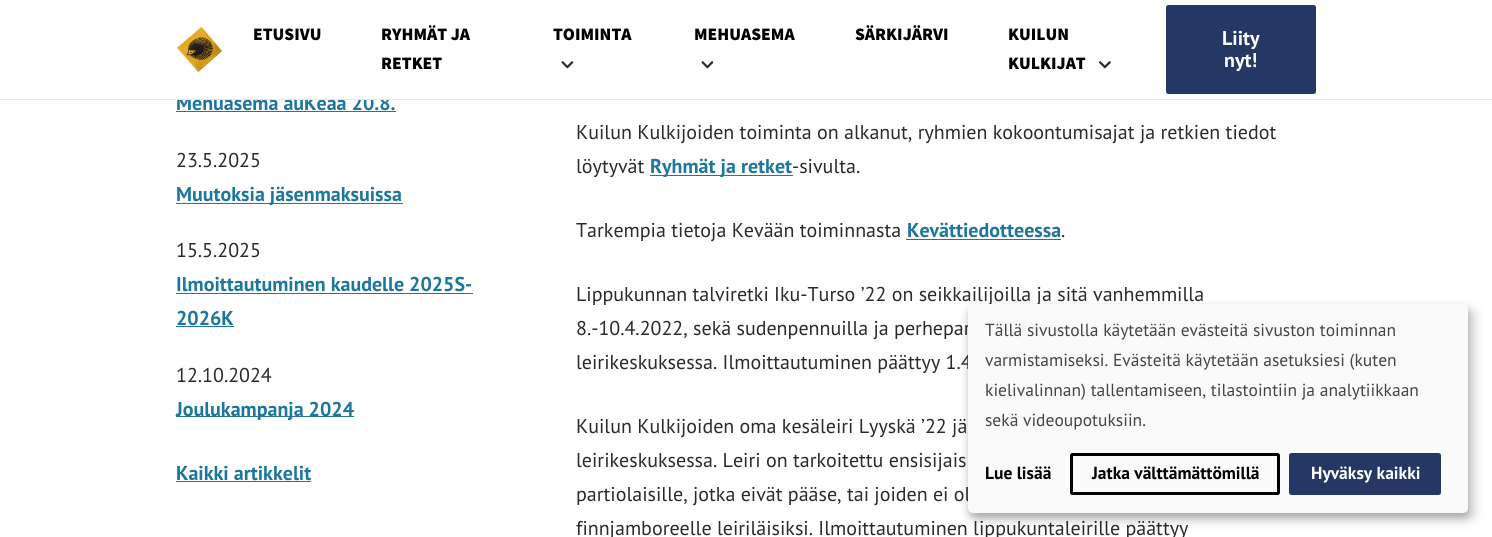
import math
import cairocffi as cairo

surface = cairo.ImageSurface(cairo.FORMAT_RGB24, 1492, 537)
cr = cairo.Context(surface)
options = cairo.FontOptions()
options.set_hint_metrics(cairo.HINT_METRICS_OFF)
options.set_hint_style(cairo.HINT_STYLE_NONE)
cr.set_font_options(options)
cr.set_miter_limit(4)


def use_color(code):
    cr.set_source_rgb(*(v / 255 for v in bytes.fromhex(code[-6:])))


def round_rect(x, y, w, h, r):
    cr.new_sub_path()
    for i, (u, v) in enumerate([(x + w - r, y + h - r), (x + r, y + h - r), (x + r, y + r), (x + w - r, y + r)]):
        cr.arc(u, v, r, i * math.pi / 2, (i + 1) * math.pi / 2)
    cr.close_path()


def shadow(x, y, w, h, r, blur, alpha):
    cr.push_group_with_content(cairo.CONTENT_ALPHA)
    cr.set_operator(cairo.OPERATOR_SOURCE)
    for i in range(15, -16, -2):
        e = blur * i / 6
        if min(w, h) + 2 * e > 0:
            cr.set_source_rgba(0, 0, 0, alpha * math.erfc((i - 1) / 8.5) / 2)
            round_rect(x - e, y - e, w + 2 * e, h + 2 * e, max(0, min(r + e + blur * .6, min(w, h) / 2 + e)))
            cr.fill()
    cr.mask(cr.pop_group())


def picture(path, x, y, w, h):
    cr.save()
    cr.set_source_surface(cairo.ImageSurface.create_from_png(path), x, y)
    cr.rectangle(x, y, w, h)
    cr.fill()
    cr.restore()


use_color("#ffffff")
cr.paint()
cr.select_font_face("PT Sans", cairo.FONT_SLANT_NORMAL, cairo.FONT_WEIGHT_BOLD)
cr.set_font_size(20)
use_color("#1c769d")
cr.move_to(176, 110)
cr.show_text("Mehuasema auKeaa 20.8.")
use_color("#ffffff")
cr.rectangle(177, 95, 213, 4)
cr.fill()
use_color("#e6e6e6")
cr.rectangle(0, 99, 1492, 1)
cr.fill()
picture("img1.png", 177, 26, 46, 46)
cr.select_font_face("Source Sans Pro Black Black")
cr.set_font_size(17.5)
use_color("#000000")
cr.move_to(253, 40)
cr.show_text("ETUSIVU")
cr.move_to(381, 40)
cr.show_text("RYHMÄT JA")
cr.move_to(381, 69)
cr.show_text("RETKET")
cr.move_to(553, 40)
cr.show_text("TOIMINTA")
picture("img2.png", 561, 61, 13, 8)
cr.move_to(694, 40)
cr.show_text("MEHUASEMA")
picture("img2.png", 701, 61, 13, 8)
cr.move_to(855, 40)
cr.show_text("SÄRKIJÄRVI")
cr.move_to(1008, 40)
cr.show_text("KUILUN")
cr.move_to(1008, 69)
cr.show_text("KULKIJAT")
picture("img3.png", 1099, 61, 12, 8)
use_color("#253764")
round_rect(1167.5, 6.5, 147, 86, 1)
cr.fill_preserve()
cr.set_line_width(3)
cr.stroke()
cr.select_font_face("PT Sans", cairo.FONT_SLANT_NORMAL, cairo.FONT_WEIGHT_BOLD)
cr.set_font_size(20)
use_color("#ffffff")
cr.move_to(1222, 45)
cr.show_text("Liity")
cr.move_to(1224, 67)
cr.show_text("nyt!")
use_color("#1c769d")
cr.rectangle(176, 111, 220, 1)
cr.fill()
cr.select_font_face("PT Sans")
use_color("#2a2a2a")
cr.move_to(176, 167)
cr.show_text("23.5.2025")
use_color("#1c769d")
cr.rectangle(176, 203, 227, 1)
cr.fill()
cr.select_font_face("PT Sans", cairo.FONT_SLANT_NORMAL, cairo.FONT_WEIGHT_BOLD)
cr.move_to(176, 201)
cr.show_text("Muutoksia jäsenmaksuissa")
cr.select_font_face("PT Sans")
use_color("#2a2a2a")
cr.move_to(176, 257)
cr.show_text("15.5.2025")
cr.select_font_face("PT Sans", cairo.FONT_SLANT_NORMAL, cairo.FONT_WEIGHT_BOLD)
use_color("#1c769d")
cr.move_to(176, 291)
cr.show_text("Ilmoittautuminen kaudelle 2025S-")
cr.rectangle(176, 293, 297, 1)
cr.fill()
cr.move_to(176, 325)
cr.show_text("2026K")
cr.rectangle(176, 326, 58, 1)
cr.fill()
cr.select_font_face("PT Sans")
use_color("#2a2a2a")
cr.move_to(176, 382)
cr.show_text("12.10.2024")
use_color("#1c769d")
cr.rectangle(176, 416, 178, 1)
cr.fill()
cr.select_font_face("PT Sans", cairo.FONT_SLANT_NORMAL, cairo.FONT_WEIGHT_BOLD)
cr.move_to(176, 416)
cr.show_text("Joulukampanja 2024")
cr.move_to(176, 480)
cr.show_text("Kaikki artikkelit")
cr.rectangle(176, 481, 135, 1)
cr.fill()
cr.select_font_face("PT Sans")
use_color("#2a2a2a")
cr.move_to(576, 139)
cr.show_text("Kuilun Kulkijoiden toiminta on alkanut, ryhmien kokoontumisajat ja retkien tiedot")
cr.move_to(576, 173)
cr.show_text("löytyvät")
use_color("#1c769d")
cr.rectangle(650, 175, 143, 1)
cr.fill()
cr.select_font_face("PT Sans", cairo.FONT_SLANT_NORMAL, cairo.FONT_WEIGHT_BOLD)
cr.move_to(650, 173)
cr.show_text("Ryhmät ja retket")
cr.select_font_face("PT Sans")
use_color("#2a2a2a")
cr.move_to(792, 173)
cr.show_text("-sivulta.")
cr.move_to(576, 237)
cr.show_text("Tarkempia tietoja Kevään toiminnasta")
cr.select_font_face("PT Sans", cairo.FONT_SLANT_NORMAL, cairo.FONT_WEIGHT_BOLD)
use_color("#1c769d")
cr.move_to(907, 237)
cr.show_text("Kevättiedotteessa")
cr.rectangle(906, 239, 155, 1)
cr.fill()
cr.select_font_face("PT Sans")
use_color("#2a2a2a")
cr.move_to(1061, 237)
cr.show_text(".")
cr.move_to(576, 301)
cr.show_text("Lippukunnan talviretki Iku-Turso ’22 on seikkailijoilla ja sitä vanhemmilla")
cr.move_to(576, 335)
cr.show_text("8.-10.4.2022, sekä sudenpennuilla ja perhepar")
cr.move_to(576, 369)
cr.show_text("leirikeskuksessa. Ilmoittautuminen päättyy 1.4")
cr.move_to(576, 433)
cr.show_text("Kuilun Kulkijoiden oma kesäleiri Lyyskä ’22 jä")
cr.move_to(576, 467)
cr.show_text("leirikeskuksessa. Leiri on tarkoitettu ensisijais")
cr.move_to(576, 501)
cr.show_text("partiolaisille, jotka eivät pääse, tai joiden ei ol")
cr.move_to(576, 535)
cr.show_text("finnjamboreelle leiriläisiksi. Ilmoittautuminen lippukuntaleirille päättyy")
use_color("#000000")
shadow(974, 310, 500, 209, 5, 6, 0.19)
shadow(968, 309, 500, 209, 5, 4, 0.2)
use_color("#fafafa")
round_rect(968, 304, 500, 209, 5)
cr.fill()
cr.set_font_size(17.5)
use_color("#444444")
cr.move_to(985, 336)
cr.show_text("Tällä sivustolla käytetään evästeitä sivuston toiminnan")
cr.move_to(985, 366)
cr.show_text("varmistamiseksi. Evästeitä käytetään asetuksiesi (kuten")
cr.move_to(985, 396)
cr.show_text("kielivalinnan) tallentamiseen, tilastointiin ja analytiikkaan")
cr.move_to(985, 426)
cr.show_text("sekä videoupotuksiin.")
cr.select_font_face("PT Sans", cairo.FONT_SLANT_NORMAL, cairo.FONT_WEIGHT_BOLD)
use_color("#000000")
cr.move_to(985, 479)
cr.show_text("Lue lisää")
round_rect(1071.5, 454.5, 207, 39, 1)
cr.stroke()
cr.move_to(1092, 479)
cr.show_text("Jatka välttämättömillä")
use_color("#253764")
round_rect(1290.5, 454.5, 149, 39, 1)
cr.fill_preserve()
cr.stroke()
use_color("#ffffff")
cr.move_to(1311, 479)
cr.show_text("Hyväksy kaikki")
surface.write_to_png("result.png")
